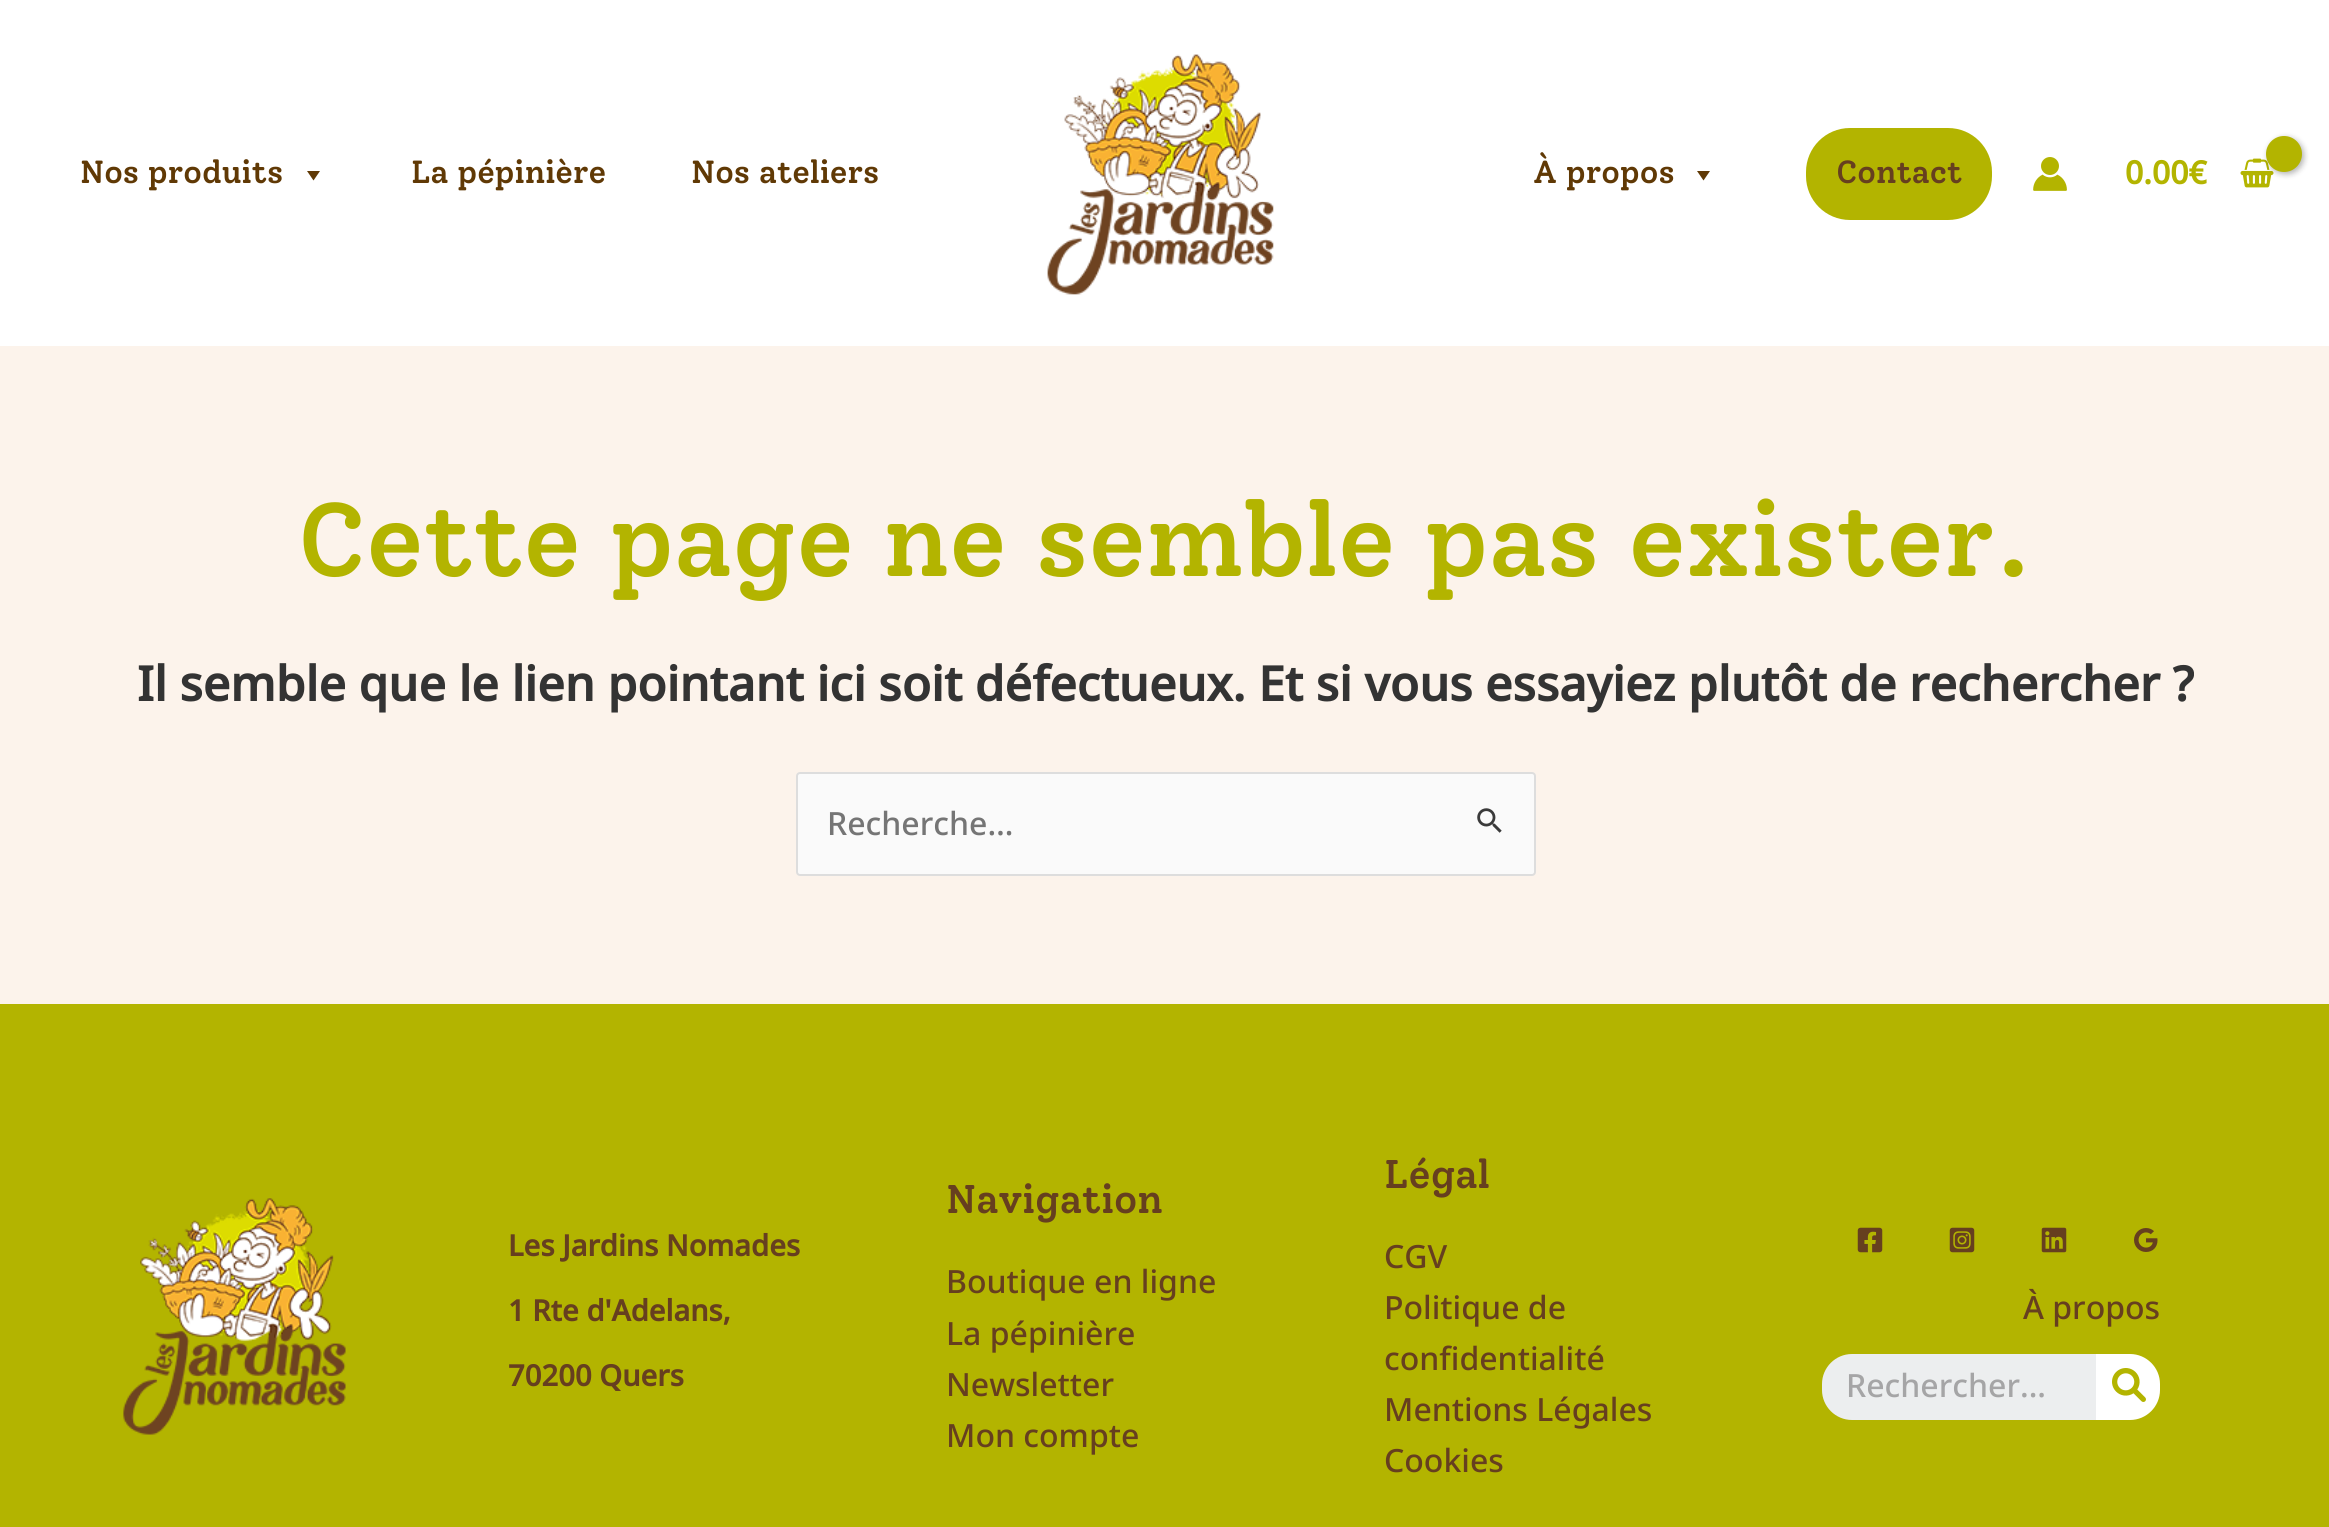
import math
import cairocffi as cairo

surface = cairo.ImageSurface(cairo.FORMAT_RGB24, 2329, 1527)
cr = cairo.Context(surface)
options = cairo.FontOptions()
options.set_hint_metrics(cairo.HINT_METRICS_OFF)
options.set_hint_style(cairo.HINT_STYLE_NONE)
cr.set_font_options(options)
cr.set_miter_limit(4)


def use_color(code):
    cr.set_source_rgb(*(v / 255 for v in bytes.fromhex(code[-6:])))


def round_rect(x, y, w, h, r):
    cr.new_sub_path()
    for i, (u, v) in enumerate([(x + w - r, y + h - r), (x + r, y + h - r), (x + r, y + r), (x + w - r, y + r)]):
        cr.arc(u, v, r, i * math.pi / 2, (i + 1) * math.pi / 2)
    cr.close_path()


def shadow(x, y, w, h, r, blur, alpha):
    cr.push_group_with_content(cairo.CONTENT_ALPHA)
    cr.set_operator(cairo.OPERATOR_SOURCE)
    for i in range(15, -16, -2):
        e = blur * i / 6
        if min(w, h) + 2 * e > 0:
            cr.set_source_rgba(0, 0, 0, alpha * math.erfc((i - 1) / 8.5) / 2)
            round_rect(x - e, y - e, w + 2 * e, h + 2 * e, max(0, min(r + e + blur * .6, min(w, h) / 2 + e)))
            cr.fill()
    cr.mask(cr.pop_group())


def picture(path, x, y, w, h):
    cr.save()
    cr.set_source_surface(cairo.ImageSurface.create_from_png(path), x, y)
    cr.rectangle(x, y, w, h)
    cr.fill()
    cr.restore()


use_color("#fcf3eb")
cr.paint()
use_color("#ffffff")
cr.rectangle(0, 0, 2329, 346)
cr.fill()
cr.select_font_face("Solway Medium")
cr.set_font_size(32)
use_color("#603905")
cr.move_to(80, 183)
cr.show_text("Nos produits")
cr.new_path()
cr.move_to(320, 171)
cr.line_to(313.5, 180.5)
cr.line_to(307, 171)
cr.close_path()
cr.fill()
cr.move_to(411, 183)
cr.show_text("La pépinière")
cr.move_to(691, 183)
cr.show_text("Nos ateliers")
picture("img1.png", 1047, 54, 227, 241)
cr.move_to(1533, 183)
cr.show_text("À propos")
cr.new_path()
cr.move_to(1710, 171)
cr.line_to(1703.5, 180.5)
cr.line_to(1697, 171)
cr.close_path()
cr.fill()
use_color("#b3b400")
round_rect(1806, 128, 186, 92, 44)
cr.fill()
use_color("#663f1f")
cr.move_to(1836, 183)
cr.show_text("Contact")
picture("img2.png", 2033, 157, 34, 34)
cr.select_font_face("Noto Sans", cairo.FONT_SLANT_NORMAL, cairo.FONT_WEIGHT_BOLD)
use_color("#b3b400")
cr.move_to(2125, 184)
cr.show_text("0.00€")
picture("img3.png", 2240, 158, 34, 30)
use_color("#000000")
shadow(2268, 138, 36, 36, 18, 3, 0.3)
use_color("#b3b400")
cr.arc(2284, 154, 18, 0, 2 * math.pi)
cr.fill()
cr.select_font_face("Solway Medium")
cr.set_font_size(104)
cr.move_to(297, 576)
cr.show_text("Cette page ne semble pas exister.")
cr.select_font_face("Noto Sans", cairo.FONT_SLANT_NORMAL, cairo.FONT_WEIGHT_BOLD)
cr.set_font_size(48)
use_color("#333333")
cr.move_to(137, 701)
cr.show_text("Il semble que le lien pointant ici soit défectueux. Et si vous essayiez plutôt de rechercher ?")
use_color("#fafafa")
round_rect(797, 773, 738, 102, 3)
cr.fill_preserve()
use_color("#dddddd")
cr.stroke()
cr.select_font_face("Noto Sans Medium")
cr.set_font_size(32)
use_color("#757575")
cr.move_to(827, 835)
cr.show_text("Recherche…")
picture("img4.png", 1477, 808, 25, 25)
use_color("#b3b400")
cr.rectangle(0, 1004, 2329, 523)
cr.fill()
picture("img5.png", 123, 1198, 223, 237)
cr.select_font_face("Noto Sans", cairo.FONT_SLANT_NORMAL, cairo.FONT_WEIGHT_BOLD)
cr.set_font_size(29.25)
use_color("#663f1f")
cr.move_to(508, 1256)
cr.show_text("Les Jardins Nomades")
cr.move_to(508, 1321)
cr.show_text("1 Rte d'Adelans,")
cr.move_to(508, 1386)
cr.show_text("70200 Quers")
cr.select_font_face("Solway Medium")
cr.set_font_size(40)
cr.move_to(946, 1213)
cr.show_text("Navigation")
cr.select_font_face("Noto Sans Medium")
cr.set_font_size(32)
cr.move_to(946, 1293)
cr.show_text("Boutique en ligne")
cr.move_to(946, 1345)
cr.show_text("La pépinière")
cr.move_to(946, 1396)
cr.show_text("Newsletter")
cr.move_to(946, 1447)
cr.show_text("Mon compte")
cr.select_font_face("Solway Medium")
cr.set_font_size(40)
cr.move_to(1384, 1188)
cr.show_text("Légal")
cr.select_font_face("Noto Sans Medium")
cr.set_font_size(32)
cr.move_to(1384, 1268)
cr.show_text("CGV")
cr.move_to(1384, 1319)
cr.show_text("Politique de")
cr.move_to(1384, 1370)
cr.show_text("confidentialité")
cr.move_to(1384, 1421)
cr.show_text("Mentions Légales")
cr.move_to(1384, 1472)
cr.show_text("Cookies")
picture("img6.png", 1857, 1227, 26, 26)
picture("img7.png", 1949, 1227, 26, 26)
picture("img8.png", 2041, 1227, 26, 26)
picture("img9.png", 2134, 1228, 24, 24)
cr.move_to(2023, 1319)
cr.show_text("À propos")
use_color("#eceeef")
cr.new_path()
cr.move_to(1852, 1354)
cr.line_to(2096, 1354)
cr.line_to(2096, 1420)
cr.line_to(1852, 1420)
cr.curve_to(1835.5, 1420, 1822, 1406.5, 1822, 1390)
cr.line_to(1822, 1384)
cr.curve_to(1822, 1367.5, 1835.5, 1354, 1852, 1354)
cr.close_path()
cr.fill()
use_color("#a5a5a6")
cr.move_to(1846, 1397)
cr.show_text("Rechercher...")
use_color("#ffffff")
cr.new_path()
cr.move_to(2096, 1354)
cr.line_to(2130, 1354)
cr.curve_to(2146.5, 1354, 2160, 1367.5, 2160, 1384)
cr.line_to(2160, 1390)
cr.curve_to(2160, 1406.5, 2146.5, 1420, 2130, 1420)
cr.line_to(2096, 1420)
cr.close_path()
cr.fill()
picture("img10.png", 2112, 1368, 34, 34)
surface.write_to_png("result.png")
